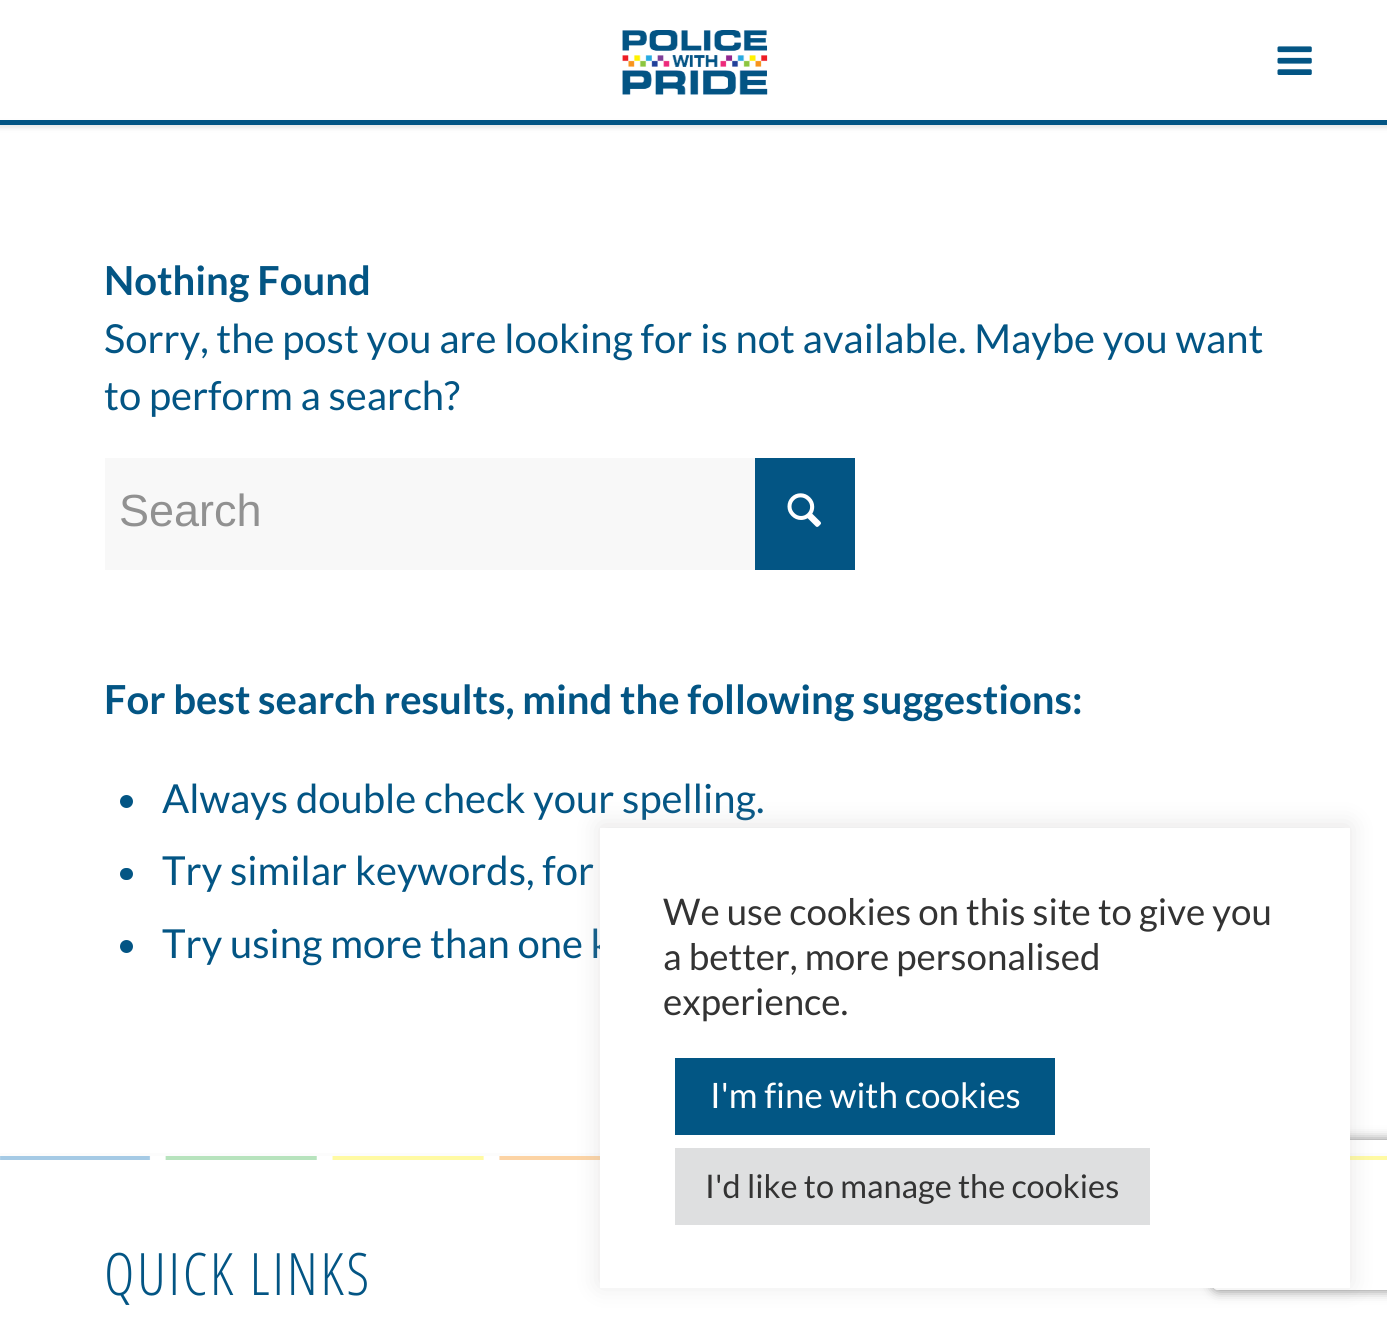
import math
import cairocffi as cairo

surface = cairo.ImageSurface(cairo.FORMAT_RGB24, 1387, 1325)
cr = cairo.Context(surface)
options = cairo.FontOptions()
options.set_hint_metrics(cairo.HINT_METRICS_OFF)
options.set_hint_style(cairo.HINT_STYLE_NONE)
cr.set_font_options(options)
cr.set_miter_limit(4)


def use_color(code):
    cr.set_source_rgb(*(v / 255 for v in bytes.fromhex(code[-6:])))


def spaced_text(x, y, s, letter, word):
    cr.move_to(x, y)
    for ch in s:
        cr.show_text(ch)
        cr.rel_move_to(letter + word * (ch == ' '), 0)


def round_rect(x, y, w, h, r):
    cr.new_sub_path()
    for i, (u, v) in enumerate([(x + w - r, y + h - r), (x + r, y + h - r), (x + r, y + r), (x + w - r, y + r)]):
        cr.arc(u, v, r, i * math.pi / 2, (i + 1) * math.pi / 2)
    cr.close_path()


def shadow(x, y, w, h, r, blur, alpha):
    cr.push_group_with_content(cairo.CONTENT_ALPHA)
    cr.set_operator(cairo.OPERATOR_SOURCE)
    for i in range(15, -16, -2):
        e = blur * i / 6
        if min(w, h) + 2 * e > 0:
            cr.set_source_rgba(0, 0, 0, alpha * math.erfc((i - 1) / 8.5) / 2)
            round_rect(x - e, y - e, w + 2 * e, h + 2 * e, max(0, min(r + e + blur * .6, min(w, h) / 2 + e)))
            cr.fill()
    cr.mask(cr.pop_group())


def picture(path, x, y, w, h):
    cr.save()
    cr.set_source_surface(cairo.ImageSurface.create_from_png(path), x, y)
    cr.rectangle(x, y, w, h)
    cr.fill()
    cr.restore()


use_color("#ffffff")
cr.paint()
use_color("#000000")
shadow(-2, 123, 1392, 5, 0, 2.5, 0.1)
use_color("#035584")
cr.rectangle(0, 120, 1387, 5)
cr.fill()
picture("img1.png", 622, 30, 146, 65)
picture("img2.png", 1277, 46, 35, 29)
cr.select_font_face("Lato", cairo.FONT_SLANT_NORMAL, cairo.FONT_WEIGHT_BOLD)
cr.set_font_size(40)
cr.move_to(104, 295)
cr.show_text("Nothing Found")
cr.select_font_face("Lato")
cr.move_to(104, 353)
cr.show_text("Sorry, the post you are looking for is not available. Maybe you want")
cr.move_to(104, 410)
cr.show_text("to perform a search?")
use_color("#f8f8f8")
cr.rectangle(105, 458, 650, 112)
cr.fill()
cr.select_font_face("Liberation Sans")
cr.set_font_size(45)
use_color("#919191")
cr.move_to(119, 526)
cr.show_text("Search")
use_color("#035584")
cr.rectangle(755, 458, 100, 112)
cr.fill()
picture("img3.png", 787, 493, 34, 34)
cr.select_font_face("Lato", cairo.FONT_SLANT_NORMAL, cairo.FONT_WEIGHT_BOLD)
cr.set_font_size(40)
cr.move_to(104, 714)
cr.show_text("For best search results, mind the following suggestions:")
cr.new_path()
cr.arc(126.5, 801.5, 6.5, 0, 2 * math.pi)
cr.fill()
cr.select_font_face("Lato")
cr.move_to(162, 813)
cr.show_text("Always double check your spelling.")
round_rect(120, 868, 13, 12, 6)
cr.fill()
cr.move_to(162, 885)
cr.show_text("Try similar keywords, for")
cr.new_path()
cr.arc(126.5, 946.5, 6.5, 0, 2 * math.pi)
cr.fill()
cr.move_to(162, 958)
cr.show_text("Try using more than one k")
picture("img4.png", 0, 1156, 1387, 4)
use_color("#fcfcfc")
cr.rectangle(0, 1153, 1387, 3)
cr.fill()
cr.select_font_face("Open Sans Condensed Light")
cr.set_font_size(58.5)
use_color("#035584")
spaced_text(104, 1295, "QUICK LINKS", 2.5, 0)
use_color("#acabab")
shadow(600, 825, 750, 460, 0, 12.5, 0.3)
cr.save()
cr.set_fill_rule(cairo.FILL_RULE_EVEN_ODD)
cr.new_path()
cr.move_to(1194, 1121)
cr.line_to(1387, 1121)
cr.line_to(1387, 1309)
cr.line_to(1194, 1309)
cr.close_path()
cr.move_to(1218, 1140)
cr.line_to(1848, 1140)
cr.curve_to(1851, 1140, 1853, 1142, 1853, 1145)
cr.line_to(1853, 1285)
cr.curve_to(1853, 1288, 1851, 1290, 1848, 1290)
cr.line_to(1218, 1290)
cr.curve_to(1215, 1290, 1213, 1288, 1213, 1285)
cr.line_to(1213, 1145)
cr.curve_to(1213, 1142, 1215, 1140, 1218, 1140)
cr.close_path()
cr.clip()
use_color("#808080")
shadow(1213, 1140, 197, 150, 5, 6, 1)
cr.restore()
use_color("#ffffff")
cr.rectangle(600, 828, 750, 460)
cr.fill()
cr.select_font_face("Lato")
cr.set_font_size(36.7)
use_color("#333333")
cr.move_to(663, 925)
cr.show_text("We use cookies on this site to give you")
cr.move_to(663, 970)
cr.show_text("a better, more personalised")
cr.move_to(663, 1015)
cr.show_text("experience.")
use_color("#025684")
cr.rectangle(675, 1058, 380, 77)
cr.fill()
cr.set_font_size(35)
use_color("#ffffff")
cr.move_to(710, 1108)
cr.show_text("I'm fine with cookies")
use_color("#dedfe0")
cr.rectangle(675, 1148, 475, 77)
cr.fill()
cr.set_font_size(32.5)
use_color("#333333")
cr.move_to(705, 1198)
cr.show_text("I'd like to manage the cookies")
surface.write_to_png("result.png")
